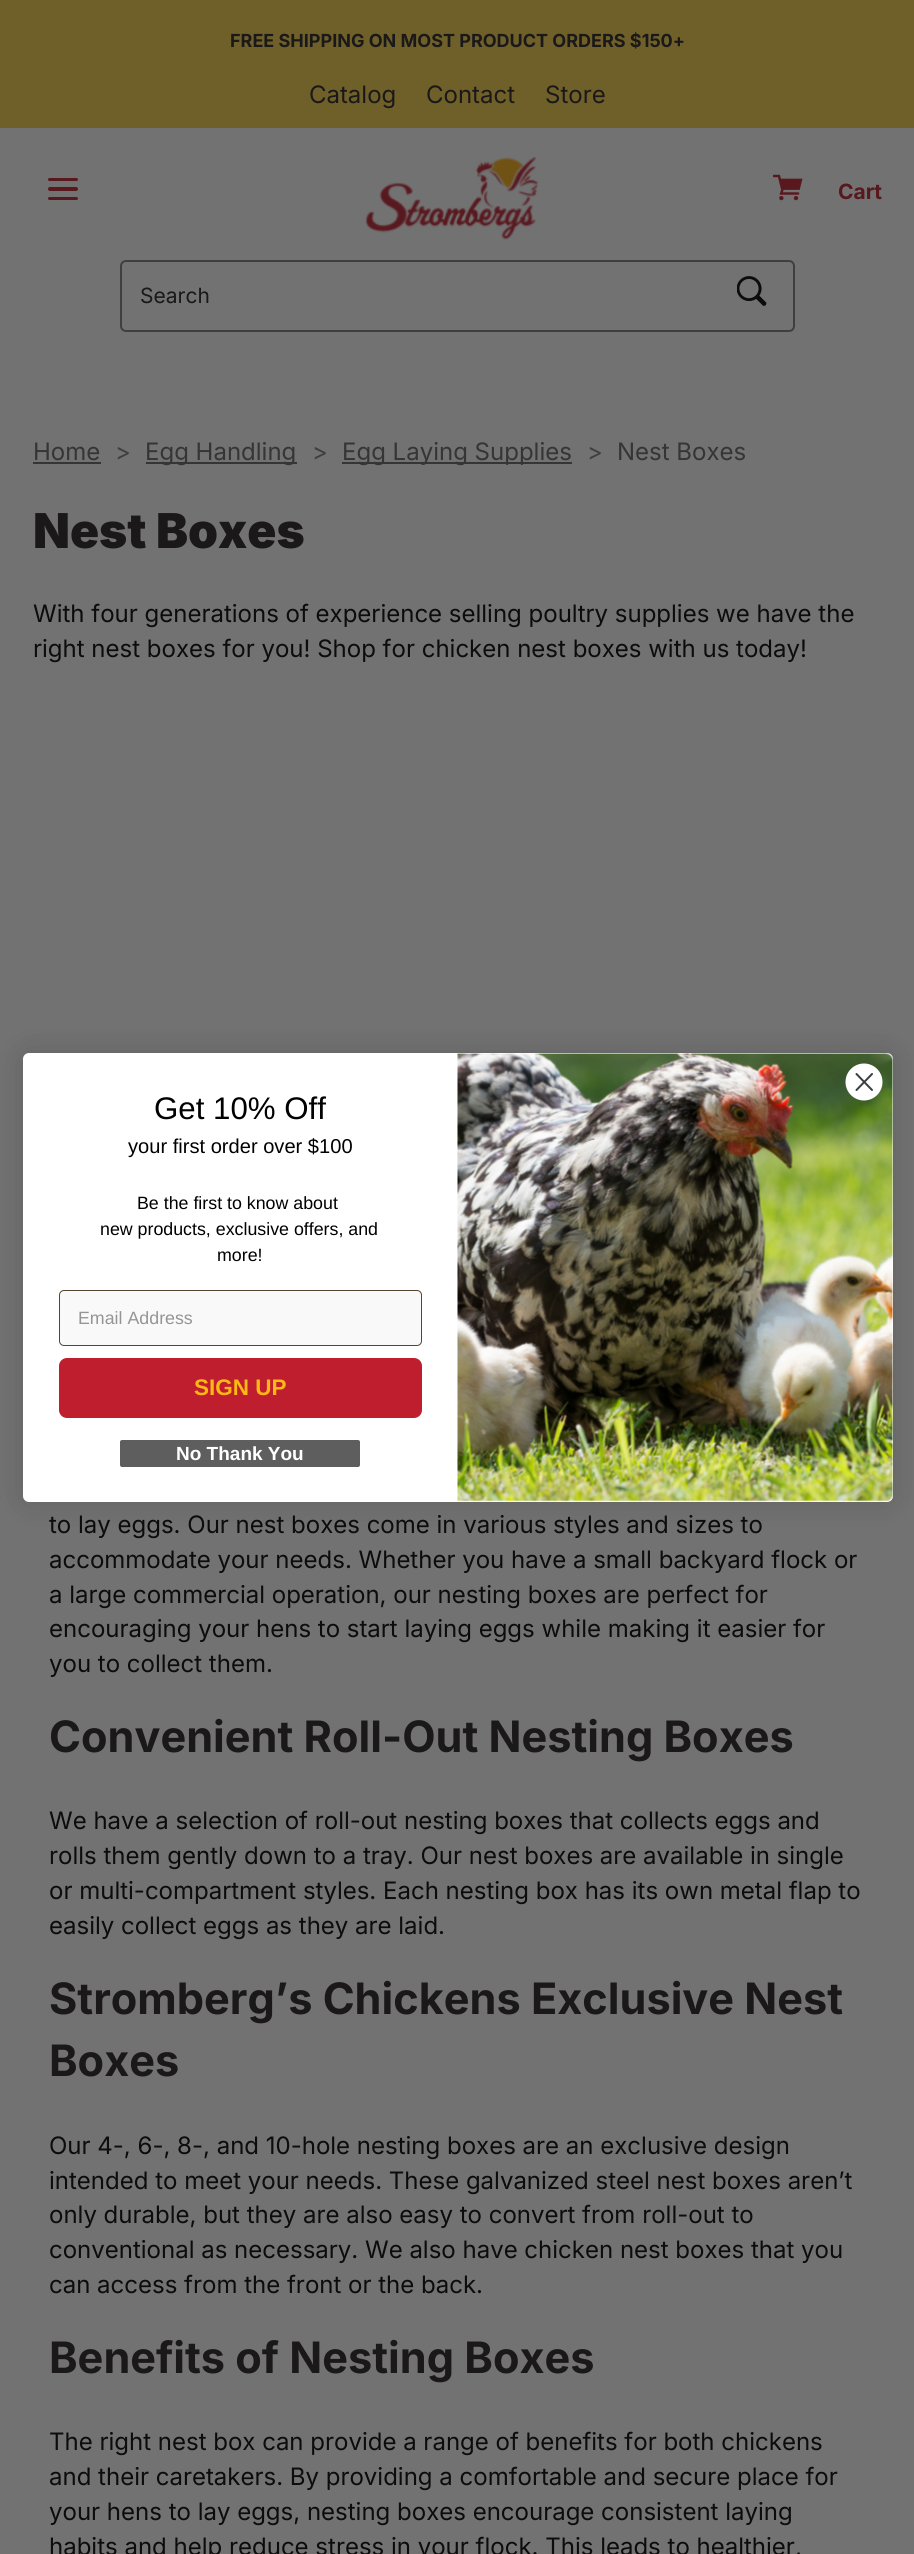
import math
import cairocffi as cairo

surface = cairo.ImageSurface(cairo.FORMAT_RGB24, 914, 2554)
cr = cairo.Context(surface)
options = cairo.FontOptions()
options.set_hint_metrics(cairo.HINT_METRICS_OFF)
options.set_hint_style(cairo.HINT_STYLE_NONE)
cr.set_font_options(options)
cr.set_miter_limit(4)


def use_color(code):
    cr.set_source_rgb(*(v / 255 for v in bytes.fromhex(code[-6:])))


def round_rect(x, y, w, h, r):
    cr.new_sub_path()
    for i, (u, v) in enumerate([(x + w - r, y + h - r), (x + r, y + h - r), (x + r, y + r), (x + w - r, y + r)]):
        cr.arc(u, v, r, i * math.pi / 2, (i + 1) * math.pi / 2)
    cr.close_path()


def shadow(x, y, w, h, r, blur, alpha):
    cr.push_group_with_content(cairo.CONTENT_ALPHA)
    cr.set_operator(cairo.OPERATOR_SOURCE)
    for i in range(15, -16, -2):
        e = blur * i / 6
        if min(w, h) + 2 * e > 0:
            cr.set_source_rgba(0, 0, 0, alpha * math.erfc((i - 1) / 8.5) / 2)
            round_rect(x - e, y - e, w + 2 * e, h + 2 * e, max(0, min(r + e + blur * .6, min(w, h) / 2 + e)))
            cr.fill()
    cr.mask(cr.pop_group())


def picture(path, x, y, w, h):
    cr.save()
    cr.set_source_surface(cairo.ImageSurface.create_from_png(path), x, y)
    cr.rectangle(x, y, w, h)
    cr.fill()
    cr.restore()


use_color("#727272")
cr.paint()
use_color("#6f6029")
cr.rectangle(0, 0, 914, 128)
cr.fill()
cr.select_font_face("Inter", cairo.FONT_SLANT_NORMAL, cairo.FONT_WEIGHT_BOLD)
cr.set_font_size(18)
use_color("#1a1819")
cr.move_to(230, 47)
cr.show_text("FREE SHIPPING ON MOST PRODUCT ORDERS $150+")
cr.select_font_face("Inter")
cr.set_font_size(24)
cr.move_to(309, 103)
cr.show_text("Catalog")
cr.move_to(426, 103)
cr.show_text("Contact")
cr.move_to(545, 103)
cr.show_text("Store")
use_color("#58181e")
round_rect(48, 178, 30, 3, 1.5)
cr.fill()
round_rect(48, 187, 30, 4, 2)
cr.fill()
round_rect(48, 197, 30, 3, 1.5)
cr.fill()
picture("img1.png", 365, 157, 173, 83)
picture("img2.png", 773, 174, 30, 27)
cr.select_font_face("Inter", cairo.FONT_SLANT_NORMAL, cairo.FONT_WEIGHT_BOLD)
cr.set_font_size(21)
cr.move_to(838, 199)
cr.show_text("Cart")
round_rect(121, 261, 673, 70, 5)
use_color("#3f3f3f")
cr.stroke()
cr.select_font_face("Inter")
use_color("#1a1819")
cr.move_to(140, 303)
cr.show_text("Search")
picture("img3.png", 737, 276, 30, 30)
cr.set_font_size(24)
use_color("#353535")
cr.move_to(33, 460)
cr.show_text("Home")
cr.rectangle(33, 462, 68, 2)
cr.fill()
use_color("#3f3f3f")
cr.move_to(115, 460)
cr.show_text(">")
use_color("#353535")
cr.rectangle(146, 462, 151, 2)
cr.fill()
cr.move_to(145, 460)
cr.show_text("Egg Handling")
use_color("#3f3f3f")
cr.move_to(312, 460)
cr.show_text(">")
use_color("#353535")
cr.rectangle(342, 462, 230, 2)
cr.fill()
cr.move_to(342, 460)
cr.show_text("Egg Laying Supplies")
use_color("#3f3f3f")
cr.move_to(587, 460)
cr.show_text(">")
use_color("#353535")
cr.move_to(617, 460)
cr.show_text("Nest Boxes")
cr.select_font_face("Inter Black")
cr.set_font_size(48)
use_color("#1a1819")
cr.move_to(33, 548)
cr.show_text("Nest Boxes")
cr.select_font_face("Inter")
cr.set_font_size(24)
use_color("#0c0c0c")
cr.move_to(33, 622)
cr.show_text("With four generations of experience selling poultry supplies we have the")
cr.move_to(33, 657)
cr.show_text("right nest boxes for you! Shop for chicken nest boxes with us today!")
cr.move_to(49, 1533)
cr.show_text("to lay eggs. Our nest boxes come in various styles and sizes to")
cr.move_to(49, 1568)
cr.show_text("accommodate your needs. Whether you have a small backyard flock or")
cr.move_to(49, 1603)
cr.show_text("a large commercial operation, our nesting boxes are perfect for")
cr.move_to(49, 1637)
cr.show_text("encouraging your hens to start laying eggs while making it easier for")
cr.move_to(49, 1672)
cr.show_text("you to collect them.")
cr.select_font_face("Inter", cairo.FONT_SLANT_NORMAL, cairo.FONT_WEIGHT_BOLD)
cr.set_font_size(43.25)
use_color("#1a1819")
cr.move_to(49, 1752)
cr.show_text("Convenient Roll-Out Nesting Boxes")
cr.select_font_face("Inter")
cr.set_font_size(24)
use_color("#0c0c0c")
cr.move_to(49, 1829)
cr.show_text("We have a selection of roll-out nesting boxes that collects eggs and")
cr.move_to(49, 1864)
cr.show_text("rolls them gently down to a tray. Our nest boxes are available in single")
cr.move_to(49, 1899)
cr.show_text("or multi-compartment styles. Each nesting box has its own metal flap to")
cr.move_to(49, 1934)
cr.show_text("easily collect eggs as they are laid.")
cr.select_font_face("Inter", cairo.FONT_SLANT_NORMAL, cairo.FONT_WEIGHT_BOLD)
cr.set_font_size(43.25)
use_color("#1a1819")
cr.move_to(49, 2014)
cr.show_text("Stromberg’s Chickens Exclusive Nest")
cr.move_to(49, 2076)
cr.show_text("Boxes")
cr.select_font_face("Inter")
cr.set_font_size(24)
use_color("#0c0c0c")
cr.move_to(49, 2154)
cr.show_text("Our 4-, 6-, 8-, and 10-hole nesting boxes are an exclusive design")
cr.move_to(49, 2189)
cr.show_text("intended to meet your needs. These galvanized steel nest boxes aren’t")
cr.move_to(49, 2223)
cr.show_text("only durable, but they are also easy to convert from roll-out to")
cr.move_to(49, 2258)
cr.show_text("conventional as necessary. We also have chicken nest boxes that you")
cr.move_to(49, 2293)
cr.show_text("can access from the front or the back.")
cr.select_font_face("Inter", cairo.FONT_SLANT_NORMAL, cairo.FONT_WEIGHT_BOLD)
cr.set_font_size(43.25)
use_color("#1a1819")
cr.move_to(49, 2373)
cr.show_text("Benefits of Nesting Boxes")
cr.select_font_face("Inter")
cr.set_font_size(24)
use_color("#0c0c0c")
cr.move_to(49, 2450)
cr.show_text("The right nest box can provide a range of benefits for both chickens")
cr.move_to(49, 2485)
cr.show_text("and their caretakers. By providing a comfortable and secure place for")
cr.move_to(49, 2520)
cr.show_text("your hens to lay eggs, nesting boxes encourage consistent laying")
cr.move_to(49, 2555)
cr.show_text("habits and help reduce stress in your flock. This leads to healthier,")
use_color("#000000")
shadow(23, 1053, 870, 449, 6, 16.5, 0.15)
use_color("#ffffff")
round_rect(23, 1053, 870, 449, 6)
cr.fill()
picture("img4.png", 457, 1053, 436, 449)
cr.arc(864, 1082, 18.5, 0, 2 * math.pi)
cr.fill()
cr.new_path()
cr.move_to(856.5, 1074)
cr.line_to(872, 1090)
cr.move_to(856.5, 1090)
cr.line_to(872, 1074)
cr.close_path()
use_color("#373f47")
cr.set_line_cap(cairo.LINE_CAP_ROUND)
cr.set_line_join(cairo.LINE_JOIN_ROUND)
cr.stroke()
cr.select_font_face("Liberation Sans")
cr.set_font_size(31.25)
use_color("#000000")
cr.move_to(154, 1119)
cr.show_text("Get 10% Off")
cr.set_font_size(20.1)
cr.move_to(128, 1153)
cr.show_text("your first order over $100")
cr.set_font_size(17.8)
cr.move_to(137, 1209)
cr.show_text("Be the first to know about")
cr.move_to(100, 1235)
cr.show_text("new products, exclusive offers, and")
cr.move_to(217, 1261)
cr.show_text("more!")
use_color("#f9f9f9")
round_rect(59.5, 1290.5, 362, 55, 4.5)
cr.fill_preserve()
use_color("#54462f")
cr.set_line_width(1)
cr.set_line_cap(cairo.LINE_CAP_BUTT)
cr.set_line_join(cairo.LINE_JOIN_MITER)
cr.stroke()
use_color("#949596")
cr.move_to(78, 1324)
cr.show_text("Email Address")
use_color("#bf1e2e")
round_rect(59, 1358, 363, 60, 8)
cr.fill()
cr.select_font_face("Liberation Sans", cairo.FONT_SLANT_NORMAL, cairo.FONT_WEIGHT_BOLD)
cr.set_font_size(22.5)
use_color("#fdb813")
cr.move_to(194, 1395)
cr.show_text("SIGN UP")
use_color("#5e5e5e")
round_rect(120, 1440, 240, 27, 2)
cr.fill()
cr.set_font_size(19)
use_color("#ffffff")
cr.move_to(176, 1460)
cr.show_text("No Thank You")
surface.write_to_png("result.png")
